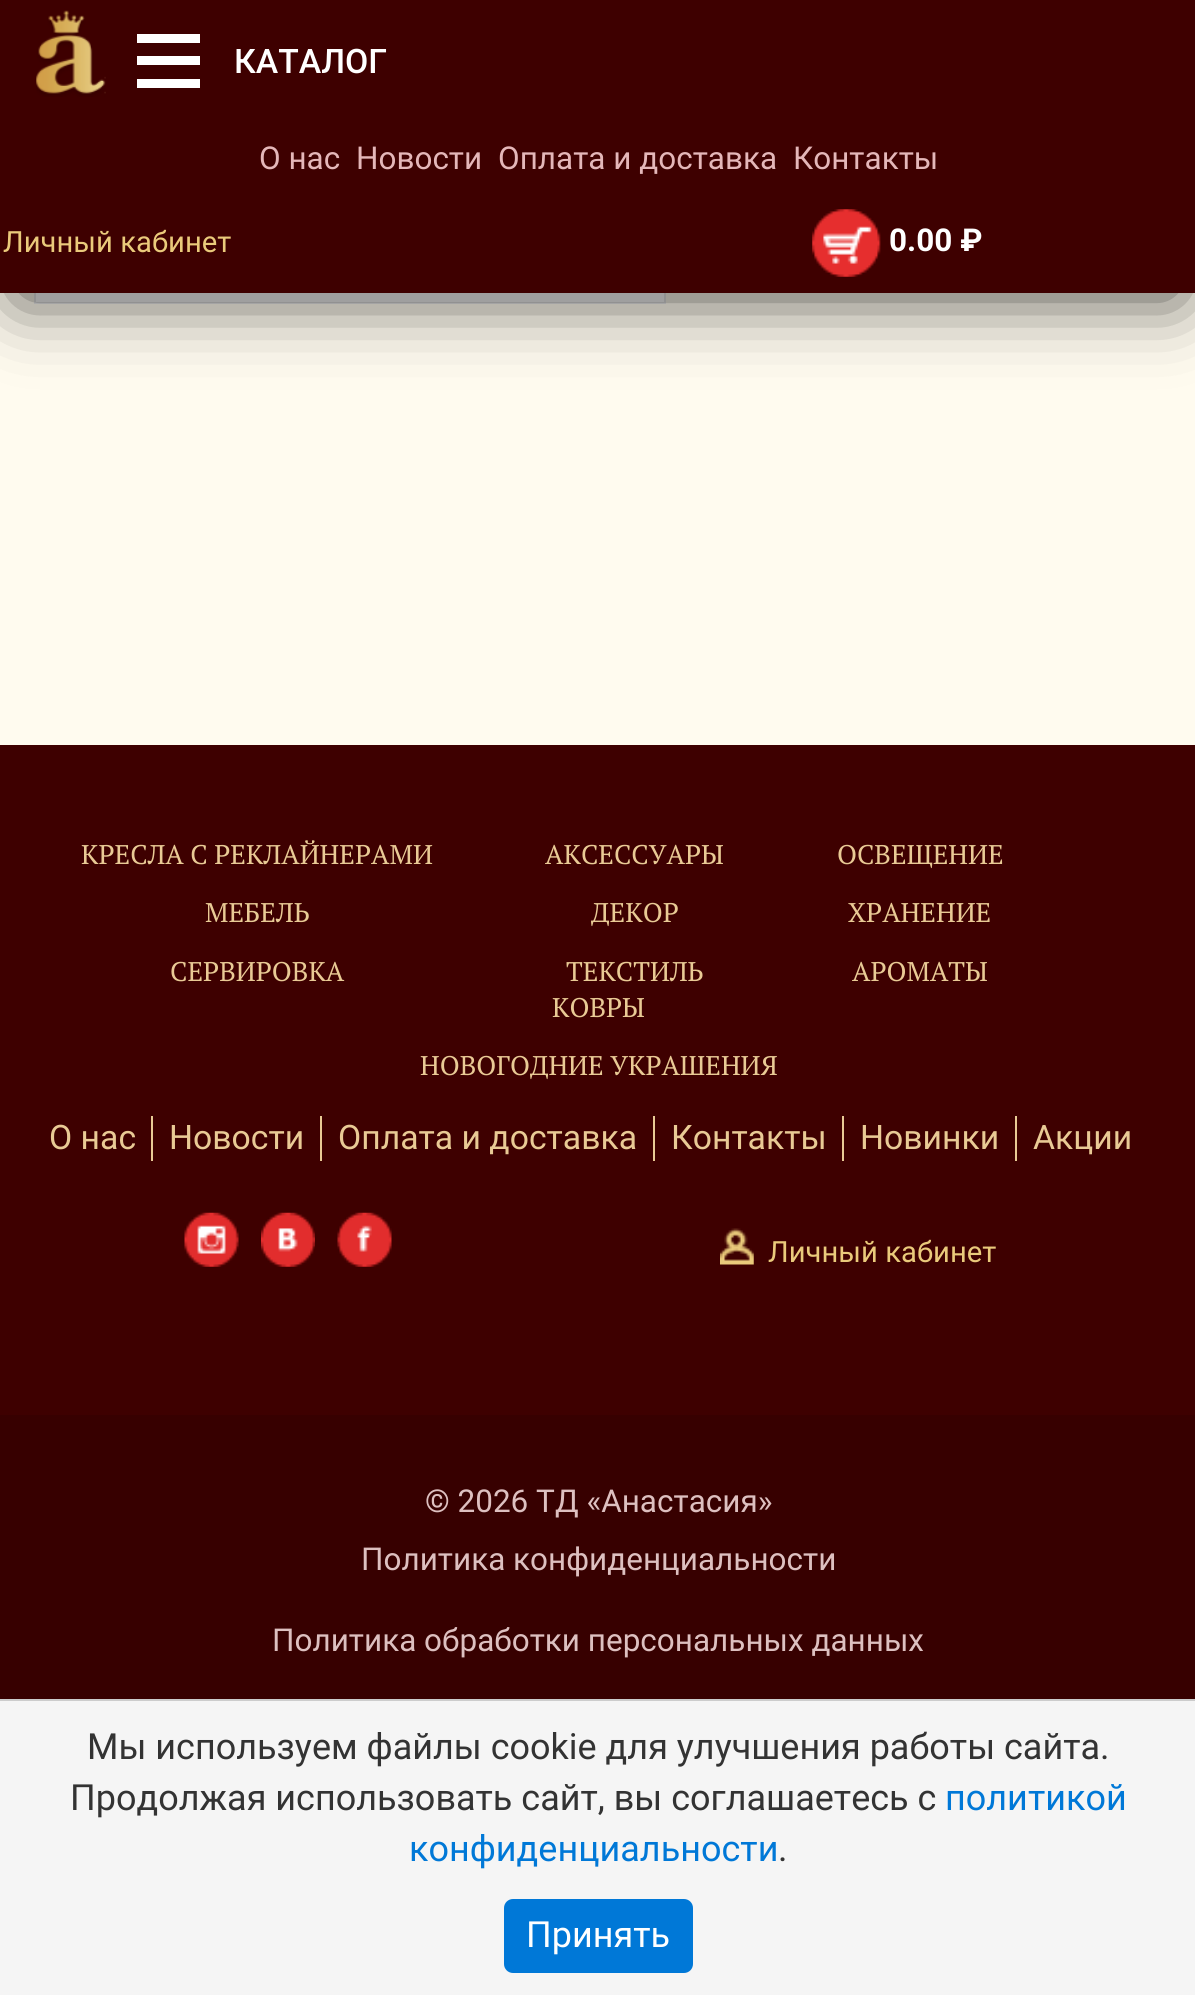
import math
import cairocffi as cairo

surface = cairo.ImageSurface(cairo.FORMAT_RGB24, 1195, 1995)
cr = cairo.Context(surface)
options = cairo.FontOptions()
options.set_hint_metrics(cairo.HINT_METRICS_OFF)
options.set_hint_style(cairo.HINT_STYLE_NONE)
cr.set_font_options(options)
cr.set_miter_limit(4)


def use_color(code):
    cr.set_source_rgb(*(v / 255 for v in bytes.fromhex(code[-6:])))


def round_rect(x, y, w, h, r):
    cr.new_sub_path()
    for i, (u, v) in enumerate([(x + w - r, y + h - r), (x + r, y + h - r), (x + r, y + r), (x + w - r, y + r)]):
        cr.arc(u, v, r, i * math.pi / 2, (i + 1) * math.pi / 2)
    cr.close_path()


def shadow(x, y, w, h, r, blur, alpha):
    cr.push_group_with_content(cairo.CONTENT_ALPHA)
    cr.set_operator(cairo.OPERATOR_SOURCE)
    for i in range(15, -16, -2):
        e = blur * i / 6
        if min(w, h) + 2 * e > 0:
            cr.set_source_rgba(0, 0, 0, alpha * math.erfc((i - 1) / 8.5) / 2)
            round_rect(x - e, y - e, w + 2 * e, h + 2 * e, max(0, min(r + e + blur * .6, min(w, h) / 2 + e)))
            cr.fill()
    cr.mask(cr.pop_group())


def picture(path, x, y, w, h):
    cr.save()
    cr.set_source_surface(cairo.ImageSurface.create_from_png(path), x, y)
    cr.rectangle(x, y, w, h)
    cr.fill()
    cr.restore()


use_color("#fffbef")
cr.paint()
use_color("#ffffff")
cr.rectangle(36, 293, 628, 9)
cr.fill()
cr.rectangle(35, -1, 630, 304)
use_color("#e9e9e9")
cr.stroke()
use_color("#000000")
shadow(18, 41, 1161, 256, 0, 37, 0.75)
use_color("#3e0000")
cr.rectangle(0, 0, 1195, 293)
cr.fill()
picture("img1.png", 36, 10, 70, 87)
use_color("#ffffff")
cr.rectangle(137, 56, 63, 9)
cr.fill()
cr.rectangle(137, 34, 63, 9)
cr.fill()
cr.rectangle(137, 79, 63, 9)
cr.fill()
cr.select_font_face("Roboto Medium")
cr.set_font_size(33.75)
cr.move_to(234, 73)
cr.show_text("КАТАЛОГ")
cr.select_font_face("Roboto")
cr.set_font_size(31.5)
use_color("#e4b7b9")
cr.move_to(259, 169)
cr.show_text("О нас")
cr.move_to(356, 169)
cr.show_text("Новости")
cr.move_to(498, 169)
cr.show_text("Оплата и доставка")
cr.move_to(793, 169)
cr.show_text("Контакты")
cr.set_font_size(29.25)
use_color("#eaca7b")
cr.move_to(3, 252)
cr.show_text("Личный кабинет")
picture("img2.png", 812, 209, 69, 68)
cr.select_font_face("Roboto", cairo.FONT_SLANT_NORMAL, cairo.FONT_WEIGHT_BOLD)
cr.set_font_size(31.5)
use_color("#ffffff")
cr.move_to(889, 251)
cr.show_text("0.00 ₽")
use_color("#3e0000")
cr.rectangle(0, 745, 1195, 670)
cr.fill()
cr.select_font_face("PT Serif")
cr.set_font_size(27)
use_color("#e9ca95")
cr.move_to(81, 864)
cr.show_text("КРЕСЛА С РЕКЛАЙНЕРАМИ")
cr.move_to(205, 922)
cr.show_text("МЕБЕЛЬ")
cr.move_to(170, 981)
cr.show_text("СЕРВИРОВКА")
cr.move_to(545, 864)
cr.show_text("АКСЕССУАРЫ")
cr.move_to(591, 922)
cr.show_text("ДЕКОР")
cr.move_to(566, 981)
cr.show_text("ТЕКСТИЛЬ")
cr.move_to(837, 864)
cr.show_text("ОСВЕЩЕНИЕ")
cr.move_to(848, 922)
cr.show_text("ХРАНЕНИЕ")
cr.move_to(852, 981)
cr.show_text("АРОМАТЫ")
cr.move_to(552, 1017)
cr.show_text("КОВРЫ")
cr.move_to(420, 1075)
cr.show_text("НОВОГОДНИЕ УКРАШЕНИЯ")
cr.rectangle(151, 1116, 2, 45)
cr.fill()
cr.select_font_face("Roboto")
cr.set_font_size(33.75)
cr.move_to(49, 1149)
cr.show_text("О нас")
cr.rectangle(320, 1116, 2, 45)
cr.fill()
cr.move_to(169, 1149)
cr.show_text("Новости")
cr.rectangle(653, 1116, 2, 45)
cr.fill()
cr.move_to(338, 1149)
cr.show_text("Оплата и доставка")
cr.rectangle(842, 1116, 2, 45)
cr.fill()
cr.move_to(671, 1149)
cr.show_text("Контакты")
cr.rectangle(1015, 1116, 2, 45)
cr.fill()
cr.move_to(860, 1149)
cr.show_text("Новинки")
cr.move_to(1033, 1149)
cr.show_text("Акции")
picture("img3.png", 184, 1212, 55, 55)
picture("img4.png", 261, 1212, 54, 55)
picture("img5.png", 337, 1212, 55, 55)
picture("img6.png", 720, 1228, 34, 37)
cr.set_font_size(29.25)
use_color("#eaca7b")
cr.move_to(768, 1262)
cr.show_text("Личный кабинет")
use_color("#370000")
cr.rectangle(0, 1415, 1195, 284)
cr.fill()
cr.set_font_size(31.5)
use_color("#ddc0c0")
cr.move_to(425, 1512)
cr.show_text("© 2026 ТД «Анастасия»")
cr.move_to(361, 1570)
cr.show_text("Политика конфиденциальности")
cr.move_to(272, 1651)
cr.show_text("Политика обработки персональных данных")
use_color("#f5f5f5")
cr.rectangle(0, 1701, 1195, 294)
cr.fill()
use_color("#cccccc")
cr.rectangle(0, 1699, 1195, 2)
cr.fill()
cr.set_font_size(36)
use_color("#333333")
cr.move_to(87, 1759)
cr.show_text("Мы используем файлы cookie для улучшения работы сайта.")
cr.move_to(70, 1810)
cr.show_text("Продолжая использовать сайт, вы соглашаетесь с")
use_color("#0078d7")
cr.move_to(945, 1810)
cr.show_text("политикой")
cr.move_to(409, 1861)
cr.show_text("конфиденциальности")
use_color("#333333")
cr.move_to(778, 1861)
cr.show_text(".")
use_color("#0078d7")
round_rect(504, 1899, 189, 74, 9)
cr.fill()
use_color("#ffffff")
cr.move_to(526, 1947)
cr.show_text("Принять")
surface.write_to_png("result.png")
